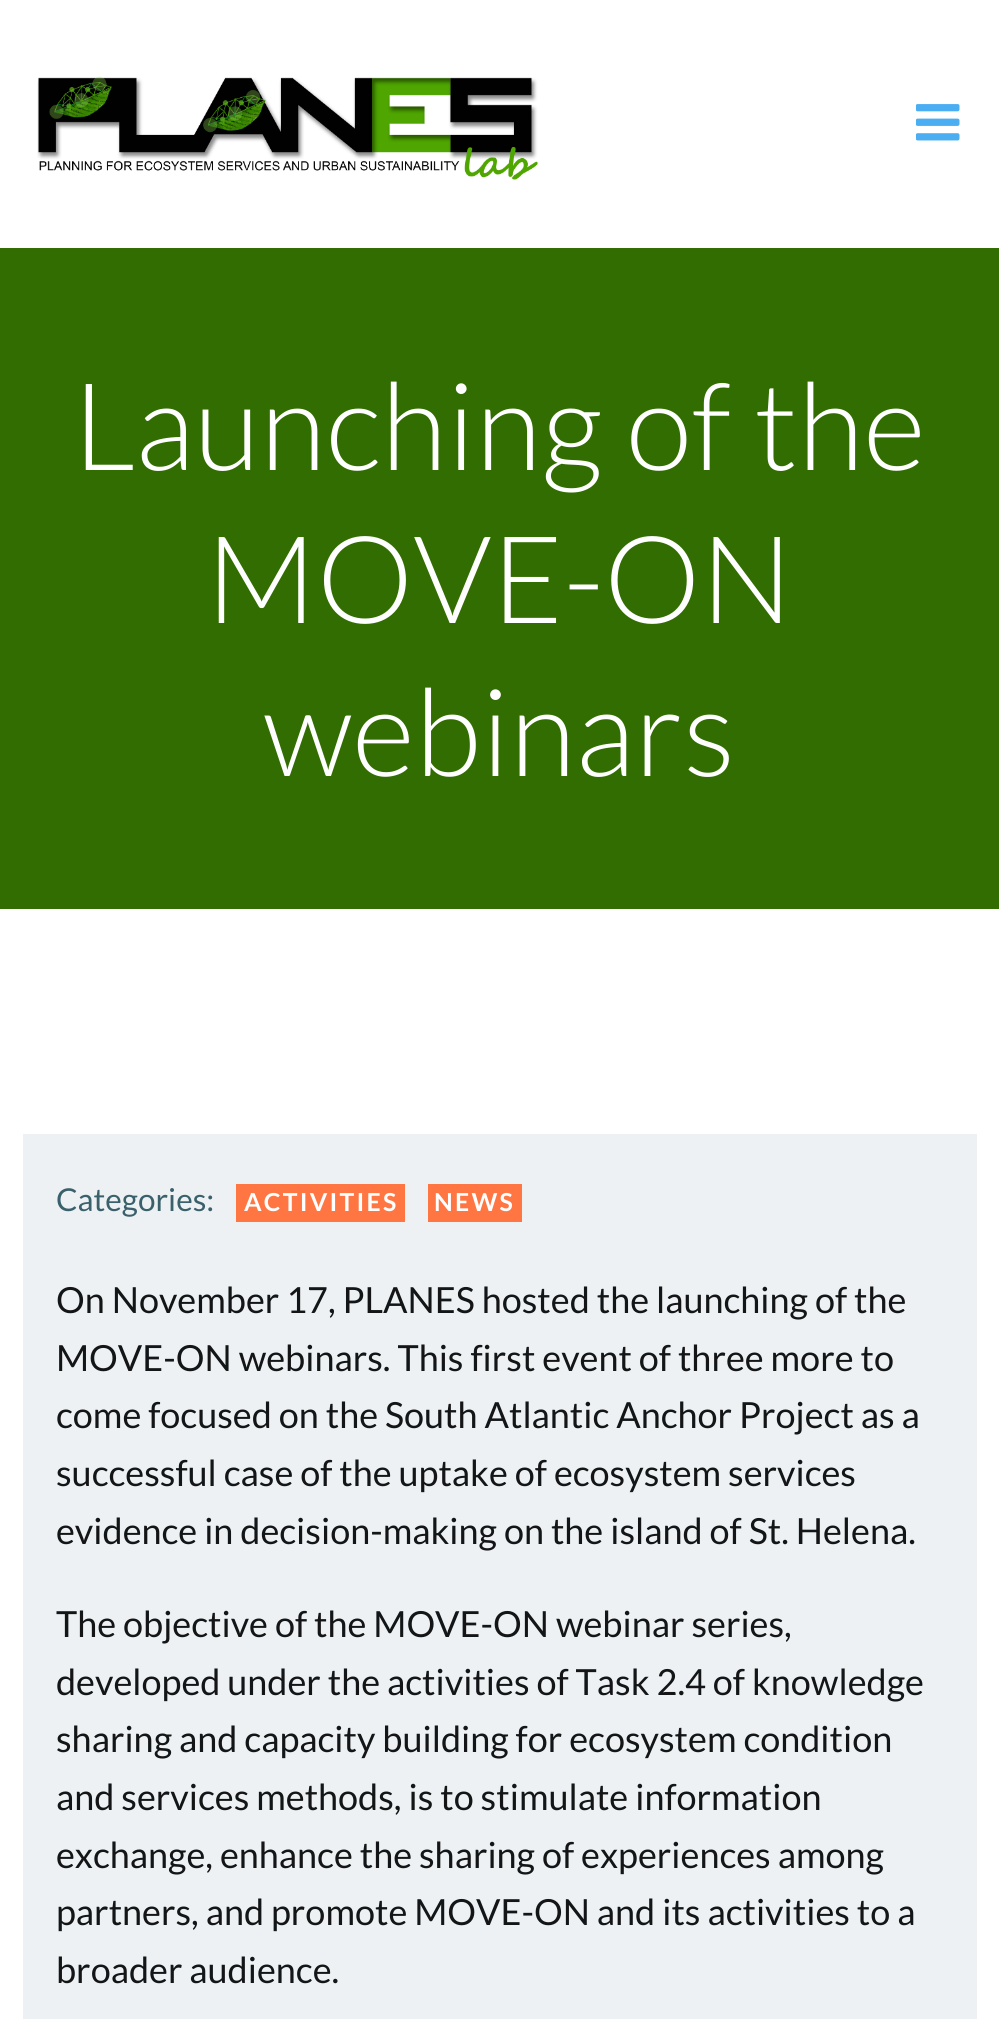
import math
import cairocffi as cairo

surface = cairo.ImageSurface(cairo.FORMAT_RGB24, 999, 2019)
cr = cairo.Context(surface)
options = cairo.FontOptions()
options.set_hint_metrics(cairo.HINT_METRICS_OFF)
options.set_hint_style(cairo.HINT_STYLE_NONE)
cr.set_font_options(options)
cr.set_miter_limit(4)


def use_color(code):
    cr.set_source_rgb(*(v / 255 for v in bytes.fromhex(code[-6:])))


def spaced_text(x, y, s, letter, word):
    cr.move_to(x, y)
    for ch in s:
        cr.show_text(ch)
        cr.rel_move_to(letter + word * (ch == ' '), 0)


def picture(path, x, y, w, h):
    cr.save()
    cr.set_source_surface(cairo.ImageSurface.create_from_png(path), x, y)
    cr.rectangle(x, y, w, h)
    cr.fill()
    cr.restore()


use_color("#ffffff")
cr.paint()
picture("img1.png", 37, 76, 501, 104)
picture("img2.png", 916, 104, 44, 37)
use_color("#326d01")
cr.rectangle(0, 248, 999, 661)
cr.fill()
cr.select_font_face("Lato Light")
cr.set_font_size(121.5)
use_color("#ffffff")
cr.move_to(73, 470)
cr.show_text("Launching of the")
cr.move_to(206, 623)
cr.show_text("MOVE-ON")
cr.move_to(263, 776)
cr.show_text("webinars")
use_color("#edf1f3")
cr.rectangle(23, 1134, 954, 885)
cr.fill()
cr.select_font_face("Lato")
cr.set_font_size(31.5)
use_color("#3a616b")
cr.move_to(56, 1211)
cr.show_text("Categories:")
use_color("#ff7643")
cr.rectangle(236, 1184, 169, 38)
cr.fill()
cr.select_font_face("Lato", cairo.FONT_SLANT_NORMAL, cairo.FONT_WEIGHT_BOLD)
cr.set_font_size(24.75)
use_color("#ffffff")
spaced_text(244, 1211, "ACTIVITIES", 2.25, 0)
use_color("#ff7643")
cr.rectangle(428, 1184, 94, 38)
cr.fill()
use_color("#ffffff")
spaced_text(434, 1211, "NEWS", 2.25, 0)
cr.select_font_face("Lato")
cr.set_font_size(36)
use_color("#131516")
cr.move_to(56, 1313)
cr.show_text("On November 17, PLANES hosted the launching of the")
cr.move_to(56, 1371)
cr.show_text("MOVE-ON webinars. This first event of three more to")
cr.move_to(56, 1428)
cr.show_text("come focused on the South Atlantic Anchor Project as a")
cr.move_to(56, 1486)
cr.show_text("successful case of the uptake of ecosystem services")
cr.move_to(56, 1544)
cr.show_text("evidence in decision-making on the island of St. Helena.")
cr.move_to(56, 1637)
cr.show_text("The objective of the MOVE-ON webinar series,")
cr.move_to(56, 1695)
cr.show_text("developed under the activities of Task 2.4 of knowledge")
cr.move_to(56, 1752)
cr.show_text("sharing and capacity building for ecosystem condition")
cr.move_to(56, 1810)
cr.show_text("and services methods, is to stimulate information")
cr.move_to(56, 1868)
cr.show_text("exchange, enhance the sharing of experiences among")
cr.move_to(56, 1925)
cr.show_text("partners, and promote MOVE-ON and its activities to a")
cr.move_to(56, 1983)
cr.show_text("broader audience.")
surface.write_to_png("result.png")
